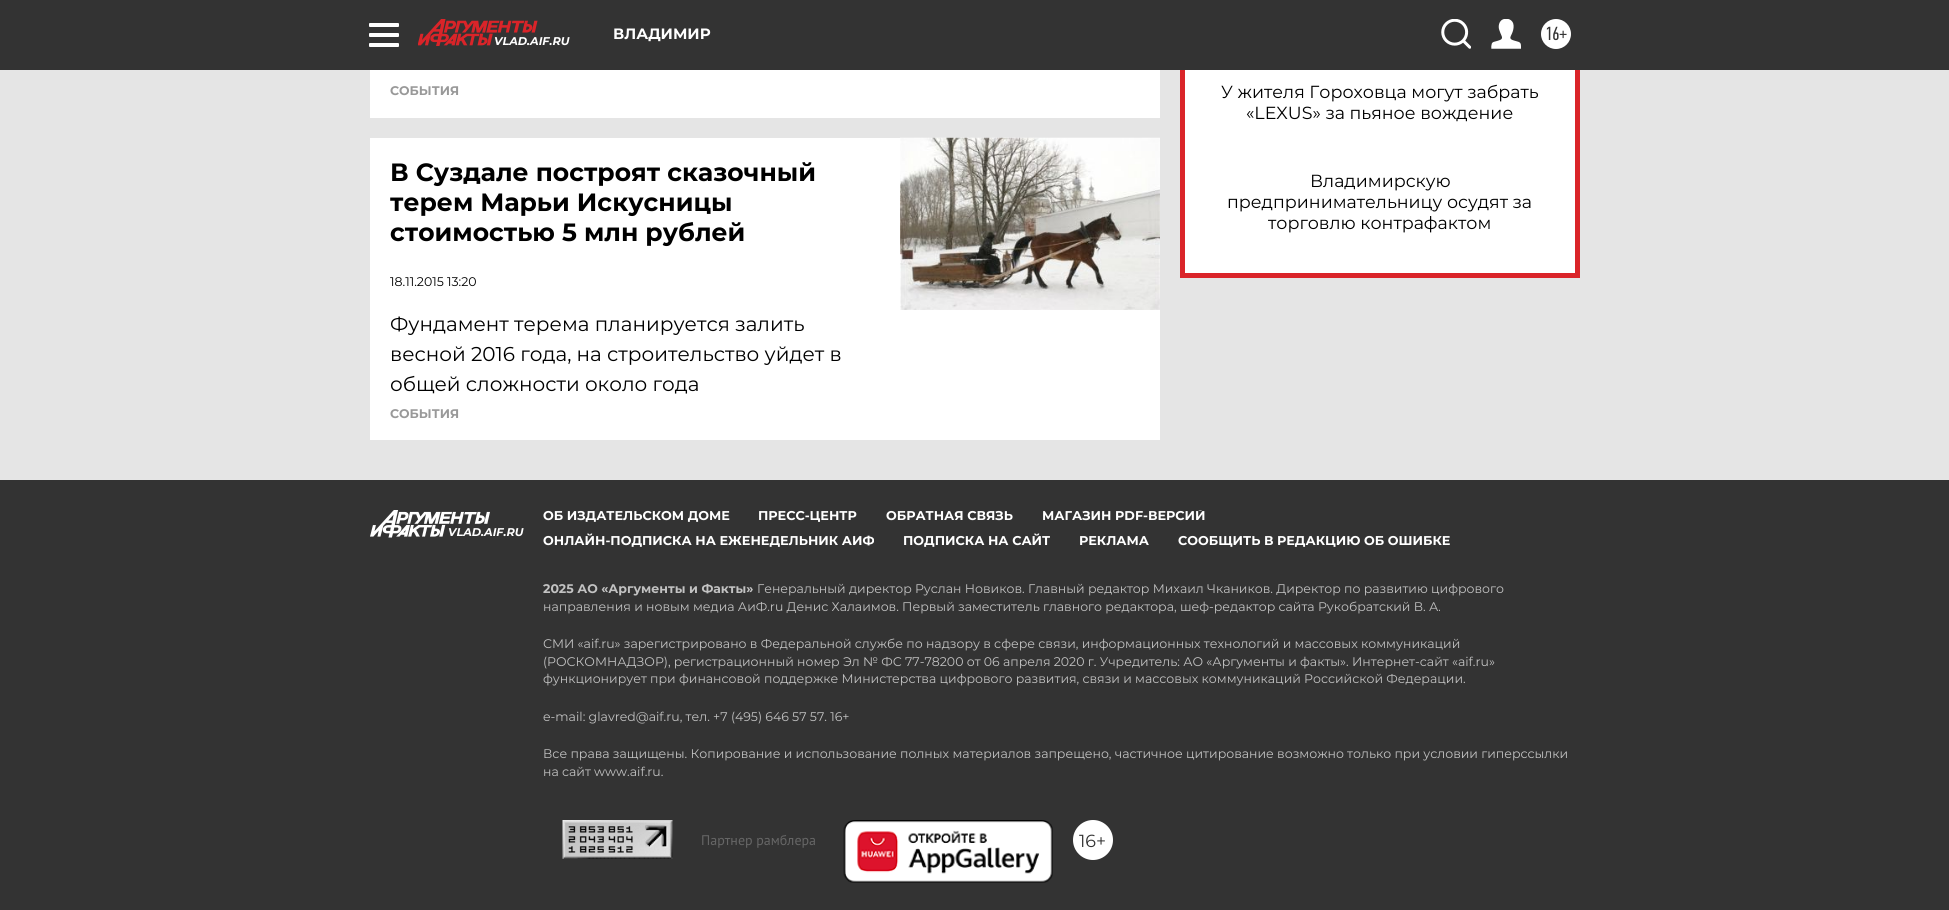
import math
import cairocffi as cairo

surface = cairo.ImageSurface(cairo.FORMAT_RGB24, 1949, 910)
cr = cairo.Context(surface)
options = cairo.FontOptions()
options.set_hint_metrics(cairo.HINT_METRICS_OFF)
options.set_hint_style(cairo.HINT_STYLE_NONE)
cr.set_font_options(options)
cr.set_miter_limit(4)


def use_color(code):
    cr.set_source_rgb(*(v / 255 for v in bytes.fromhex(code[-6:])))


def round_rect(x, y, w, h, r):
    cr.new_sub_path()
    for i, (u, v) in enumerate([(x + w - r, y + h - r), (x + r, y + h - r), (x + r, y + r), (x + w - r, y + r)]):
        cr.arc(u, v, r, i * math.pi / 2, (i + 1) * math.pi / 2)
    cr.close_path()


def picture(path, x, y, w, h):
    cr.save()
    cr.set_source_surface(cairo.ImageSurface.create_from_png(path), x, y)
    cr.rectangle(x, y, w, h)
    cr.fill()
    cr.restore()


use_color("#e5e5e5")
cr.paint()
use_color("#333333")
cr.rectangle(0, 0, 1949, 70)
cr.fill()
use_color("#ffffff")
round_rect(369, 23, 30, 4, 1)
cr.fill()
round_rect(369, 33, 30, 4, 1)
cr.fill()
round_rect(369, 43, 30, 4, 1)
cr.fill()
picture("img1.png", 418, 19, 120, 27)
cr.select_font_face("Montserrat", cairo.FONT_SLANT_ITALIC, cairo.FONT_WEIGHT_BOLD)
cr.set_font_size(11.25)
cr.move_to(494, 45)
cr.show_text("VLAD.AIF.RU")
cr.select_font_face("Montserrat", cairo.FONT_SLANT_NORMAL, cairo.FONT_WEIGHT_BOLD)
cr.set_font_size(15)
cr.move_to(613, 39)
cr.show_text("ВЛАДИМИР")
picture("img2.png", 1441, 19, 30, 30)
picture("img3.png", 1491, 19, 30, 30)
cr.arc(1556, 34, 15, 0, 2 * math.pi)
cr.fill()
cr.select_font_face("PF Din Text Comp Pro")
cr.set_font_size(19)
use_color("#333333")
cr.move_to(1545, 40)
cr.show_text("16+")
use_color("#ffffff")
cr.rectangle(370, 70, 790, 48)
cr.fill()
cr.select_font_face("Montserrat", cairo.FONT_SLANT_NORMAL, cairo.FONT_WEIGHT_BOLD)
cr.set_font_size(12.5)
use_color("#999999")
cr.move_to(390, 95)
cr.show_text("СОБЫТИЯ")
use_color("#ffffff")
cr.rectangle(370, 138, 790, 302)
cr.fill()
cr.set_font_size(25)
use_color("#000000")
cr.move_to(390, 181)
cr.show_text("В Суздале построят сказочный")
cr.move_to(390, 211)
cr.show_text("терем Марьи Искусницы")
cr.move_to(390, 241)
cr.show_text("стоимостью 5 млн рублей")
cr.select_font_face("Montserrat")
cr.set_font_size(12.5)
cr.move_to(390, 286)
cr.show_text("18.11.2015 13:20")
cr.set_font_size(20)
cr.move_to(390, 331)
cr.show_text("Фундамент терема планируется залить")
cr.move_to(390, 361)
cr.show_text("весной 2016 года, на строительство уйдет в")
cr.move_to(390, 391)
cr.show_text("общей сложности около года")
picture("img4.png", 900, 137, 260, 173)
cr.select_font_face("Montserrat", cairo.FONT_SLANT_NORMAL, cairo.FONT_WEIGHT_BOLD)
cr.set_font_size(12.5)
use_color("#999999")
cr.move_to(390, 418)
cr.show_text("СОБЫТИЯ")
use_color("#ffffff")
cr.rectangle(1185, 70, 390, 203)
cr.fill()
use_color("#da2429")
cr.rectangle(1575, 70, 5, 208)
cr.fill()
cr.rectangle(1180, 273, 400, 5)
cr.fill()
cr.rectangle(1180, 70, 5, 208)
cr.fill()
cr.select_font_face("Montserrat")
cr.set_font_size(17.5)
use_color("#000000")
cr.move_to(1221, 98)
cr.show_text("У жителя Гороховца могут забрать")
cr.move_to(1246, 119)
cr.show_text("«LEXUS» за пьяное вождение")
cr.move_to(1310, 187)
cr.show_text("Владимирскую")
cr.move_to(1227, 208)
cr.show_text("предпринимательницу осудят за")
cr.move_to(1268, 229)
cr.show_text("торговлю контрафактом")
use_color("#333333")
cr.rectangle(0, 480, 1949, 430)
cr.fill()
picture("img5.png", 370, 510, 120, 28)
cr.select_font_face("Montserrat", cairo.FONT_SLANT_ITALIC, cairo.FONT_WEIGHT_BOLD)
cr.set_font_size(11.25)
use_color("#ffffff")
cr.move_to(448, 536)
cr.show_text("VLAD.AIF.RU")
cr.select_font_face("Montserrat", cairo.FONT_SLANT_NORMAL, cairo.FONT_WEIGHT_BOLD)
cr.set_font_size(12.75)
cr.move_to(543, 520)
cr.show_text("ОБ ИЗДАТЕЛЬСКОМ ДОМЕ")
cr.move_to(758, 520)
cr.show_text("ПРЕСС-ЦЕНТР")
cr.move_to(886, 520)
cr.show_text("ОБРАТНАЯ СВЯЗЬ")
cr.save()
cr.rectangle(543, 510, 1037, 50)
cr.clip()
cr.move_to(1042, 520)
cr.show_text("МАГАЗИН PDF-ВЕРСИЙ")
cr.restore()
cr.move_to(543, 545)
cr.show_text("ОНЛАЙН-ПОДПИСКА НА ЕЖЕНЕДЕЛЬНИК АИФ")
cr.move_to(903, 545)
cr.show_text("ПОДПИСКА НА САЙТ")
cr.move_to(1079, 545)
cr.show_text("РЕКЛАМА")
cr.move_to(1178, 545)
cr.show_text("СООБЩИТЬ В РЕДАКЦИЮ ОБ ОШИБКЕ")
cr.set_font_size(12.5)
use_color("#c2c2c2")
cr.move_to(543, 593)
cr.show_text("2025 АО «Аргументы и Факты»")
cr.select_font_face("Montserrat")
cr.move_to(757, 593)
cr.show_text("Генеральный директор Руслан Новиков. Главный редактор Михаил Чкаников. Директор по развитию цифрового")
cr.move_to(543, 611)
cr.show_text("направления и новым медиа АиФ.ru Денис Халаимов. Первый заместитель главного редактора, шеф-редактор сайта Рукобратский В. А.")
cr.move_to(543, 648)
cr.show_text("СМИ «aif.ru» зарегистрировано в Федеральной службе по надзору в сфере связи, информационных технологий и массовых коммуникаций")
cr.move_to(543, 666)
cr.show_text("(РОСКОМНАДЗОР), регистрационный номер Эл № ФС 77-78200 от 06 апреля 2020 г. Учредитель: АО «Аргументы и факты». Интернет-сайт «aif.ru»")
cr.move_to(543, 683)
cr.show_text("функционирует при финансовой поддержке Министерства цифрового развития, связи и массовых коммуникаций Российской Федерации.")
cr.move_to(543, 721)
cr.show_text("e-mail: glavred@aif.ru, тел. +7 (495) 646 57 57. 16+")
cr.move_to(543, 758)
cr.show_text("Все права защищены. Копирование и использование полных материалов запрещено, частичное цитирование возможно только при условии гиперссылки")
cr.move_to(543, 776)
cr.show_text("на сайт www.aif.ru.")
picture("img6.png", 562, 820, 111, 39)
cr.select_font_face("PT Sans")
cr.set_font_size(14)
use_color("#666666")
cr.move_to(701, 845)
cr.show_text("Партнер рамблера")
picture("img7.png", 843, 820, 210, 63)
use_color("#ffffff")
cr.arc(1093, 840, 20, 0, 2 * math.pi)
cr.fill()
cr.select_font_face("Montserrat")
cr.set_font_size(17.5)
use_color("#333333")
cr.move_to(1079, 847)
cr.show_text("16+")
surface.write_to_png("result.png")
